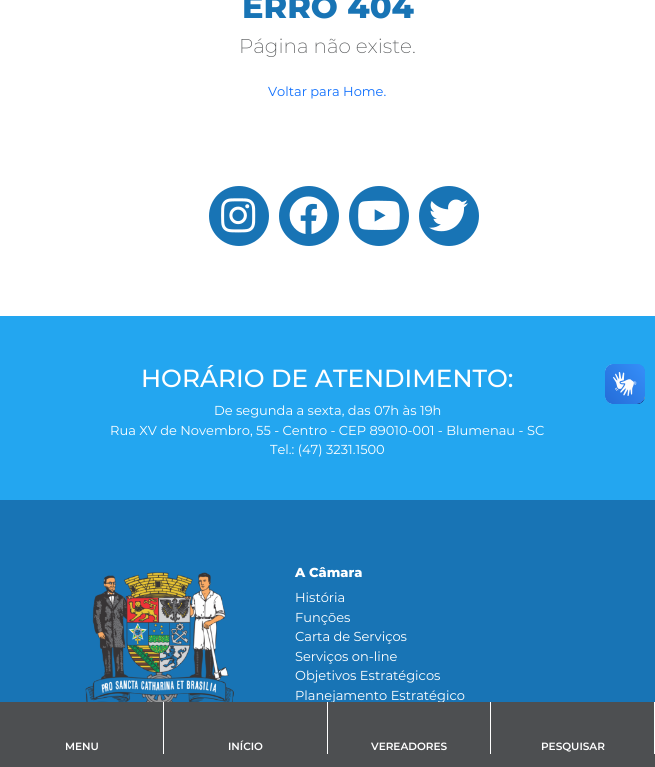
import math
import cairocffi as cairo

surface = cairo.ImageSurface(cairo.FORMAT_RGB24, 655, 767)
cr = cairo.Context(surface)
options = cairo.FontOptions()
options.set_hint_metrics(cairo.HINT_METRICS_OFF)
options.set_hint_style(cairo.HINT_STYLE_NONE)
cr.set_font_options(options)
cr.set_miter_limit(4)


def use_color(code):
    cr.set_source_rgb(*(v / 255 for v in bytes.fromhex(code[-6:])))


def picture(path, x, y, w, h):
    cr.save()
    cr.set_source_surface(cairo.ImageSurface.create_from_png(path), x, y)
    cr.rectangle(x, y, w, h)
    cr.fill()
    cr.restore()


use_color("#ffffff")
cr.paint()
cr.select_font_face("Montserrat ExtraBold")
cr.set_font_size(32)
use_color("#1874b5")
cr.move_to(242, 18)
cr.show_text("ERRO 404")
cr.select_font_face("Montserrat ExtraLight")
cr.set_font_size(20)
use_color("#4d4f51")
cr.move_to(239, 53)
cr.show_text("Página não existe.")
cr.select_font_face("Montserrat")
cr.set_font_size(13)
use_color("#0d6efd")
cr.move_to(268, 96)
cr.show_text("Voltar para Home.")
use_color("#1874b5")
cr.new_path()
cr.arc(239, 216, 30, 0, 2 * math.pi)
cr.fill()
picture("img1.png", 221, 198, 35, 35)
cr.arc(309, 216, 30, 0, 2 * math.pi)
cr.fill()
picture("img2.png", 289, 196, 39, 38)
cr.arc(379, 216, 30, 0, 2 * math.pi)
cr.fill()
picture("img3.png", 358, 200, 42, 30)
cr.arc(449, 216, 30, 0, 2 * math.pi)
cr.fill()
picture("img4.png", 429, 199, 39, 33)
use_color("#23a6f0")
cr.rectangle(0, 316, 655, 184)
cr.fill()
cr.select_font_face("Montserrat Medium")
cr.set_font_size(24.75)
use_color("#ffffff")
cr.move_to(141, 387)
cr.show_text("HORÁRIO DE ATENDIMENTO:")
cr.select_font_face("Montserrat")
cr.set_font_size(13)
cr.move_to(214, 415)
cr.show_text("De segunda a sexta, das 07h às 19h")
cr.move_to(110, 435)
cr.show_text("Rua XV de Novembro, 55 - Centro - CEP 89010-001 - Blumenau - SC")
cr.move_to(270, 454)
cr.show_text("Tel.: (47) 3231.1500")
use_color("#1874b5")
cr.rectangle(0, 500, 655, 202)
cr.fill()
picture("img5.png", 85, 572, 149, 130)
cr.select_font_face("Montserrat ExtraBold")
use_color("#ffffff")
cr.move_to(295, 577)
cr.show_text("A Câmara")
cr.select_font_face("Montserrat")
cr.move_to(295, 602)
cr.show_text("História")
cr.move_to(295, 622)
cr.show_text("Funçōes")
cr.move_to(295, 641)
cr.show_text("Carta de Serviços")
cr.move_to(295, 661)
cr.show_text("Serviços on-line")
cr.move_to(295, 680)
cr.show_text("Objetivos Estratégicos")
cr.move_to(295, 700)
cr.show_text("Planejamento Estratégico")
picture("img6.png", 605, 364, 40, 40)
picture("img7.png", 605, 364, 40, 40)
use_color("#4d4f51")
cr.rectangle(0, 702, 655, 65)
cr.fill()
use_color("#ffffff")
cr.rectangle(163, 702, 1, 52)
cr.fill()
cr.select_font_face("Montserrat SemiBold")
cr.set_font_size(10.5)
cr.move_to(65, 750)
cr.show_text("MENU")
cr.rectangle(327, 702, 1, 52)
cr.fill()
cr.move_to(228, 750)
cr.show_text("INÍCIO")
cr.rectangle(490, 702, 1, 52)
cr.fill()
cr.move_to(371, 750)
cr.show_text("VEREADORES")
cr.rectangle(654, 702, 1, 52)
cr.fill()
cr.move_to(541, 750)
cr.show_text("PESQUISAR")
surface.write_to_png("result.png")
